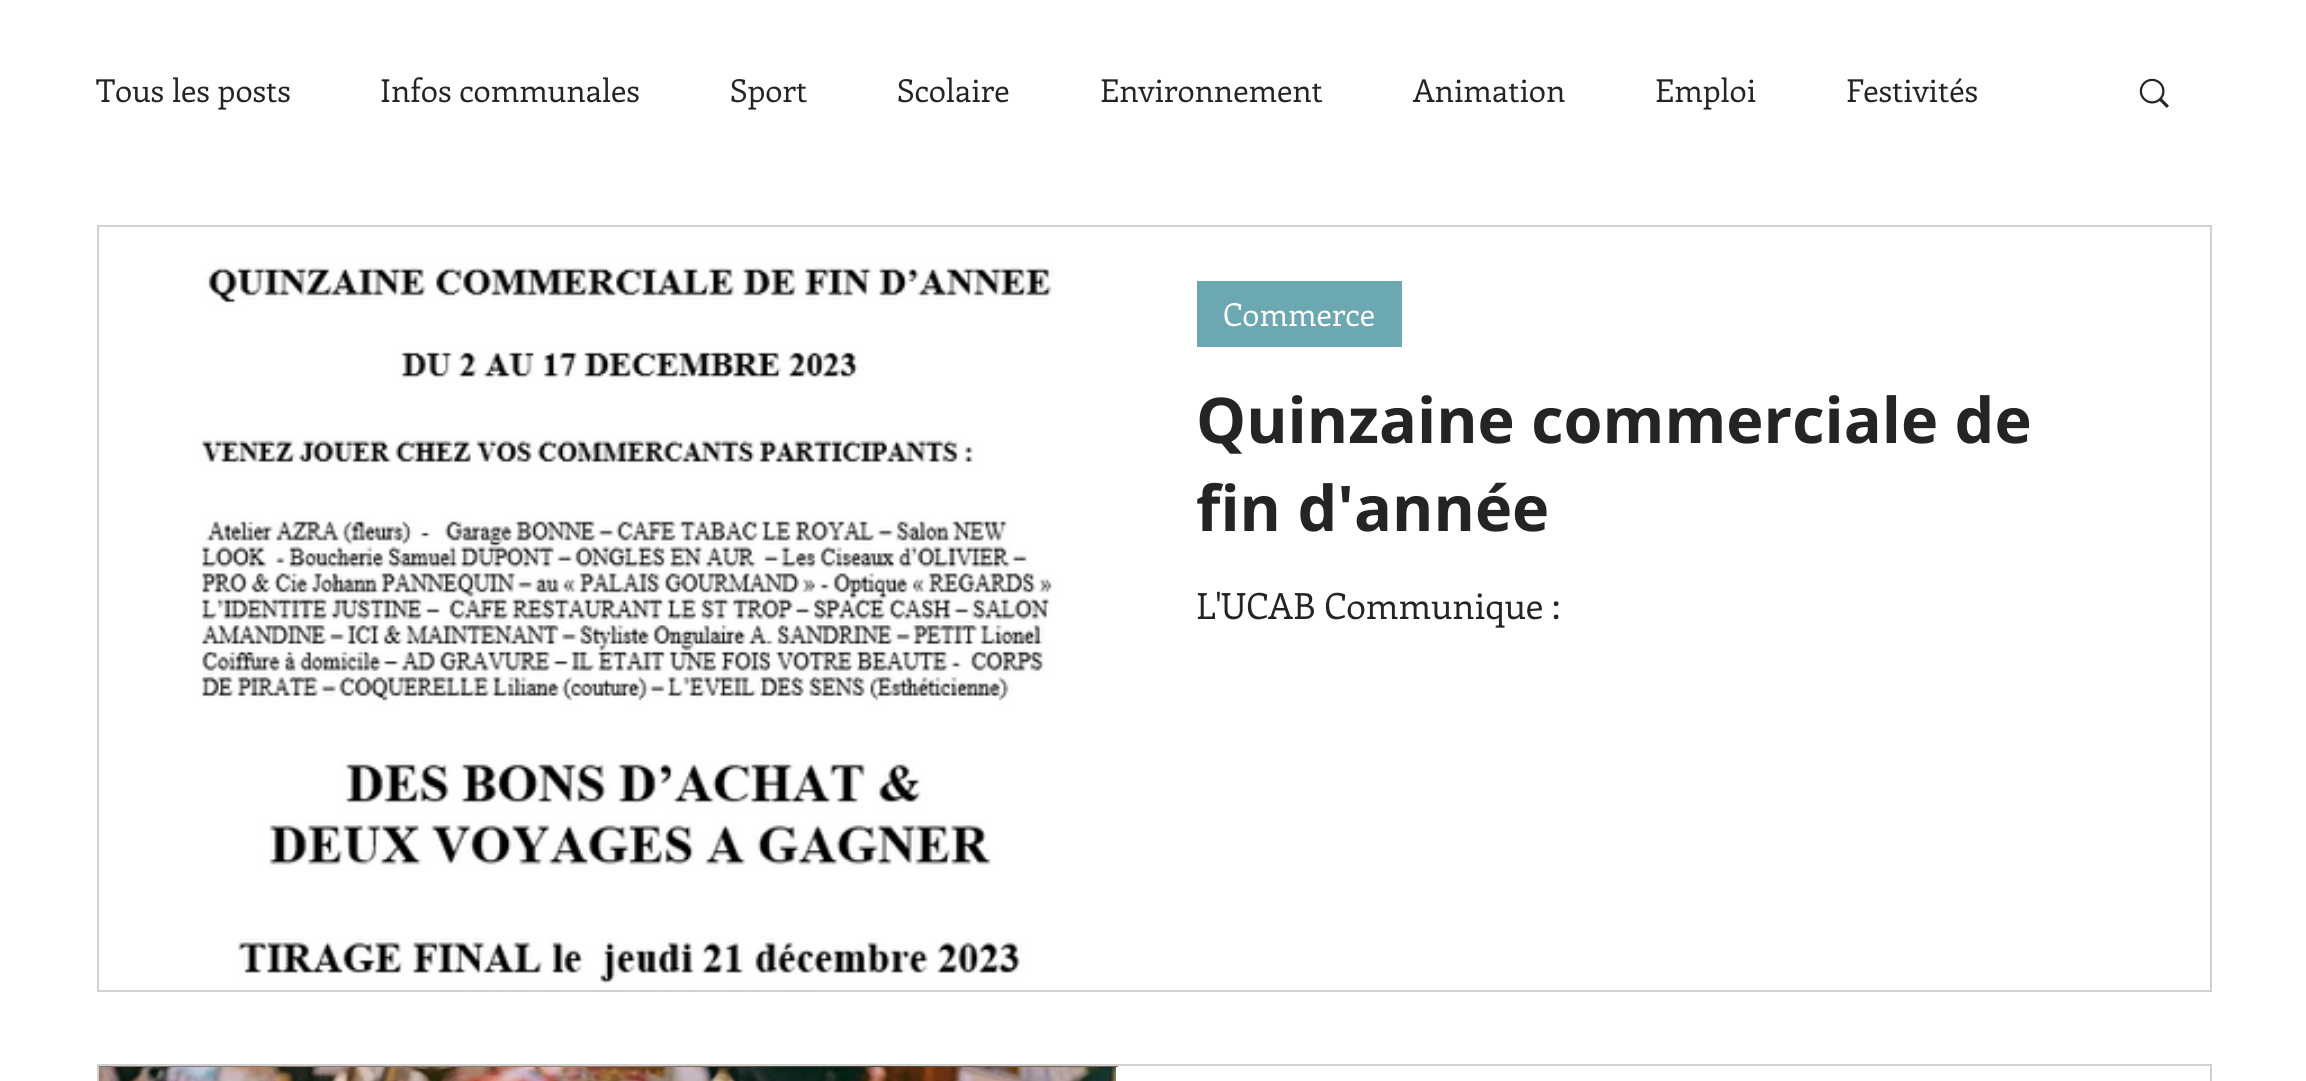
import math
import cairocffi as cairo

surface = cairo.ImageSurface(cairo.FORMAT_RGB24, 2306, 1081)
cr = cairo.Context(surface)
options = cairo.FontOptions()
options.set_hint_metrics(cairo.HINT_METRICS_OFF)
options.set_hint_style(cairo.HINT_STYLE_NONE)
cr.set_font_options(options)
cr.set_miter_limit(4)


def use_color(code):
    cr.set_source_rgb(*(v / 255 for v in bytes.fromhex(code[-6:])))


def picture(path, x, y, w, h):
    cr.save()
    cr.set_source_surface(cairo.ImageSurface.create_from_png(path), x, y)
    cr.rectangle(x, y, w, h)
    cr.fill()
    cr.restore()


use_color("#ffffff")
cr.paint()
cr.select_font_face("Enriqueta")
cr.set_font_size(31.5)
use_color("#242424")
cr.move_to(96, 102)
cr.show_text("Tous les posts")
cr.move_to(380, 102)
cr.show_text("Infos communales")
cr.move_to(730, 102)
cr.show_text("Sport")
cr.move_to(897, 102)
cr.show_text("Scolaire")
cr.move_to(1100, 102)
cr.show_text("Environnement")
cr.move_to(1413, 102)
cr.show_text("Animation")
cr.move_to(1655, 102)
cr.show_text("Emploi")
cr.move_to(1846, 102)
cr.show_text("Festivités")
picture("img1.png", 2139, 78, 30, 30)
cr.rectangle(98, 226, 2113, 765)
use_color("#d1d1d1")
cr.stroke()
picture("img2.png", 107, 227, 1011, 763)
use_color("#6ba8b2")
cr.rectangle(1197, 281, 205, 66)
cr.fill()
use_color("#ffffff")
cr.move_to(1223, 326)
cr.show_text("Commerce")
cr.select_font_face("Open Sans", cairo.FONT_SLANT_NORMAL, cairo.FONT_WEIGHT_BOLD)
cr.set_font_size(63)
use_color("#242424")
cr.move_to(1196, 443)
cr.show_text("Quinzaine commerciale de")
cr.move_to(1196, 531)
cr.show_text("fin d'année")
cr.select_font_face("Enriqueta")
cr.set_font_size(36)
cr.move_to(1196, 619)
cr.show_text("L'UCAB Communique :")
cr.rectangle(98, 1065, 2113, 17)
use_color("#d1d1d1")
cr.stroke()
picture("img3.png", 99, 1066, 1019, 1)
picture("img4.png", 99, 1067, 1017, 14)
surface.write_to_png("result.png")
